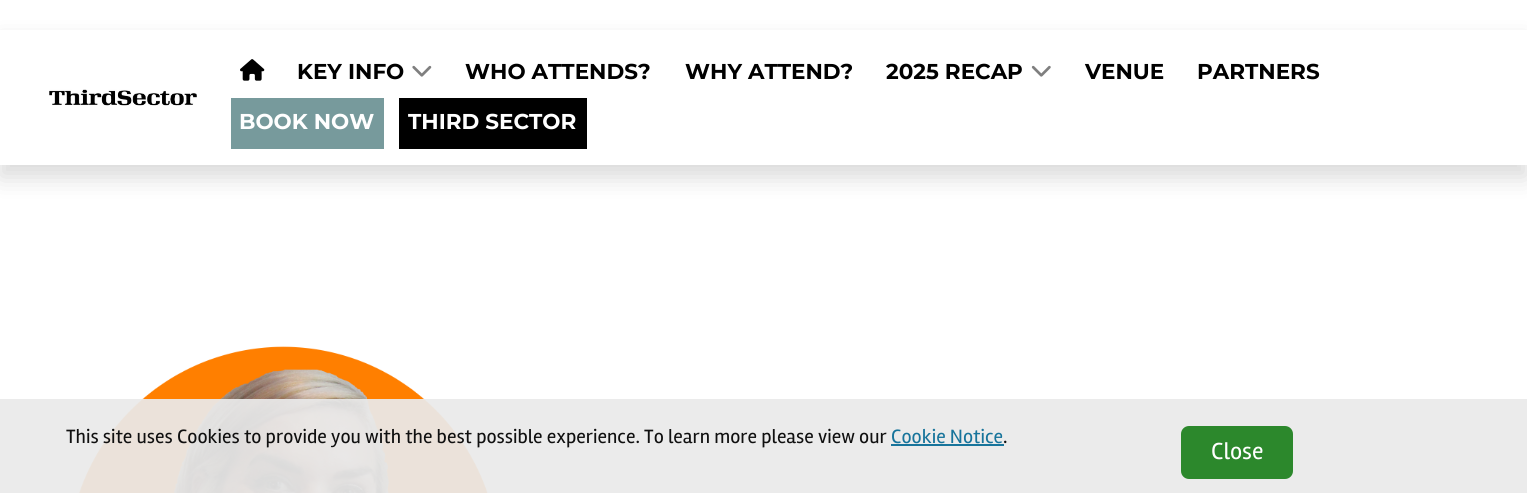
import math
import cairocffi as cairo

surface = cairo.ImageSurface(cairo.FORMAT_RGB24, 1527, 493)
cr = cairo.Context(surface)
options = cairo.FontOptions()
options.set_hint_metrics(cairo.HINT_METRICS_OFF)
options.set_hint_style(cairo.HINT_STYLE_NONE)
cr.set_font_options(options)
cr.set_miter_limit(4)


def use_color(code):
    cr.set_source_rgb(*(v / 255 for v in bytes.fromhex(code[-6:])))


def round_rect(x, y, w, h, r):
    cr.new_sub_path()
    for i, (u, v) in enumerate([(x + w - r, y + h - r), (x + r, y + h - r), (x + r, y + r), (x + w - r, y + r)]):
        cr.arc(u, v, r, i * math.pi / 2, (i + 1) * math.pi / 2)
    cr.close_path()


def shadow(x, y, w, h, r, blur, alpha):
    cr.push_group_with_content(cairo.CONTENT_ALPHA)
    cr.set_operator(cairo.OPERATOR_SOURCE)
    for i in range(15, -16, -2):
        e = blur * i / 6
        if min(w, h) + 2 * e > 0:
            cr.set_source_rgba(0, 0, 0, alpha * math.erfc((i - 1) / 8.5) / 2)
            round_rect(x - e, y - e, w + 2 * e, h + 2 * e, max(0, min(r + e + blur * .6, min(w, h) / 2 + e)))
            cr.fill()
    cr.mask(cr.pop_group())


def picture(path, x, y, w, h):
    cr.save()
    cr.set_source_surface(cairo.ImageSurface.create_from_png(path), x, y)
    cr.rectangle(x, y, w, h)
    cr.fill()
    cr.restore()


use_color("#ffffff")
cr.paint()
cr.save()
cr.set_fill_rule(cairo.FILL_RULE_EVEN_ODD)
cr.new_path()
cr.move_to(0, 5)
cr.line_to(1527, 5)
cr.line_to(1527, 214)
cr.line_to(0, 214)
cr.close_path()
cr.move_to(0, 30)
cr.line_to(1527, 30)
cr.line_to(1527, 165)
cr.line_to(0, 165)
cr.close_path()
cr.clip()
use_color("#000000")
shadow(0, 42, 1527, 135, 0, 12, 0.15)
cr.restore()
picture("img1.png", 49, 89, 148, 17)
picture("img2.png", 240, 59, 25, 22)
cr.select_font_face("Montserrat", cairo.FONT_SLANT_NORMAL, cairo.FONT_WEIGHT_BOLD)
cr.set_font_size(21.5)
use_color("#000000")
cr.move_to(297, 79)
cr.show_text("KEY INFO")
picture("img3.png", 412, 65, 20, 12)
cr.move_to(465, 79)
cr.show_text("WHO ATTENDS?")
cr.move_to(685, 79)
cr.show_text("WHY ATTEND?")
cr.move_to(886, 79)
cr.show_text("2025 RECAP")
picture("img4.png", 1031, 65, 20, 12)
cr.move_to(1085, 79)
cr.show_text("VENUE")
cr.move_to(1197, 79)
cr.show_text("PARTNERS")
use_color("#779a9c")
cr.rectangle(231, 98, 153, 51)
cr.fill()
use_color("#ffffff")
cr.move_to(239, 129)
cr.show_text("BOOK NOW")
use_color("#000000")
cr.rectangle(399, 98, 188, 51)
cr.fill()
use_color("#ffffff")
cr.move_to(408, 129)
cr.show_text("THIRD SECTOR")
picture("img5.png", 79, 346, 409, 147)
cr.set_source_rgba(0.918, 0.918, 0.918, 0.93)
cr.rectangle(0, 399, 1527, 94)
cr.fill()
cr.select_font_face("Rambla")
cr.set_font_size(19.95)
use_color("#101010")
cr.move_to(66, 443)
cr.show_text("This site uses Cookies to provide you with the best possible experience. To learn more please view our")
use_color("#17749b")
cr.move_to(891, 443)
cr.show_text("Cookie Notice")
cr.rectangle(891, 444, 113, 2)
cr.fill()
use_color("#101010")
cr.move_to(1003, 443)
cr.show_text(".")
cr.set_source_rgba(0.118, 0.506, 0.118, 0.93)
round_rect(1181, 426, 112, 53, 8)
cr.fill()
cr.set_font_size(24)
use_color("#ffffff")
cr.move_to(1211, 459)
cr.show_text("Close")
surface.write_to_png("result.png")
